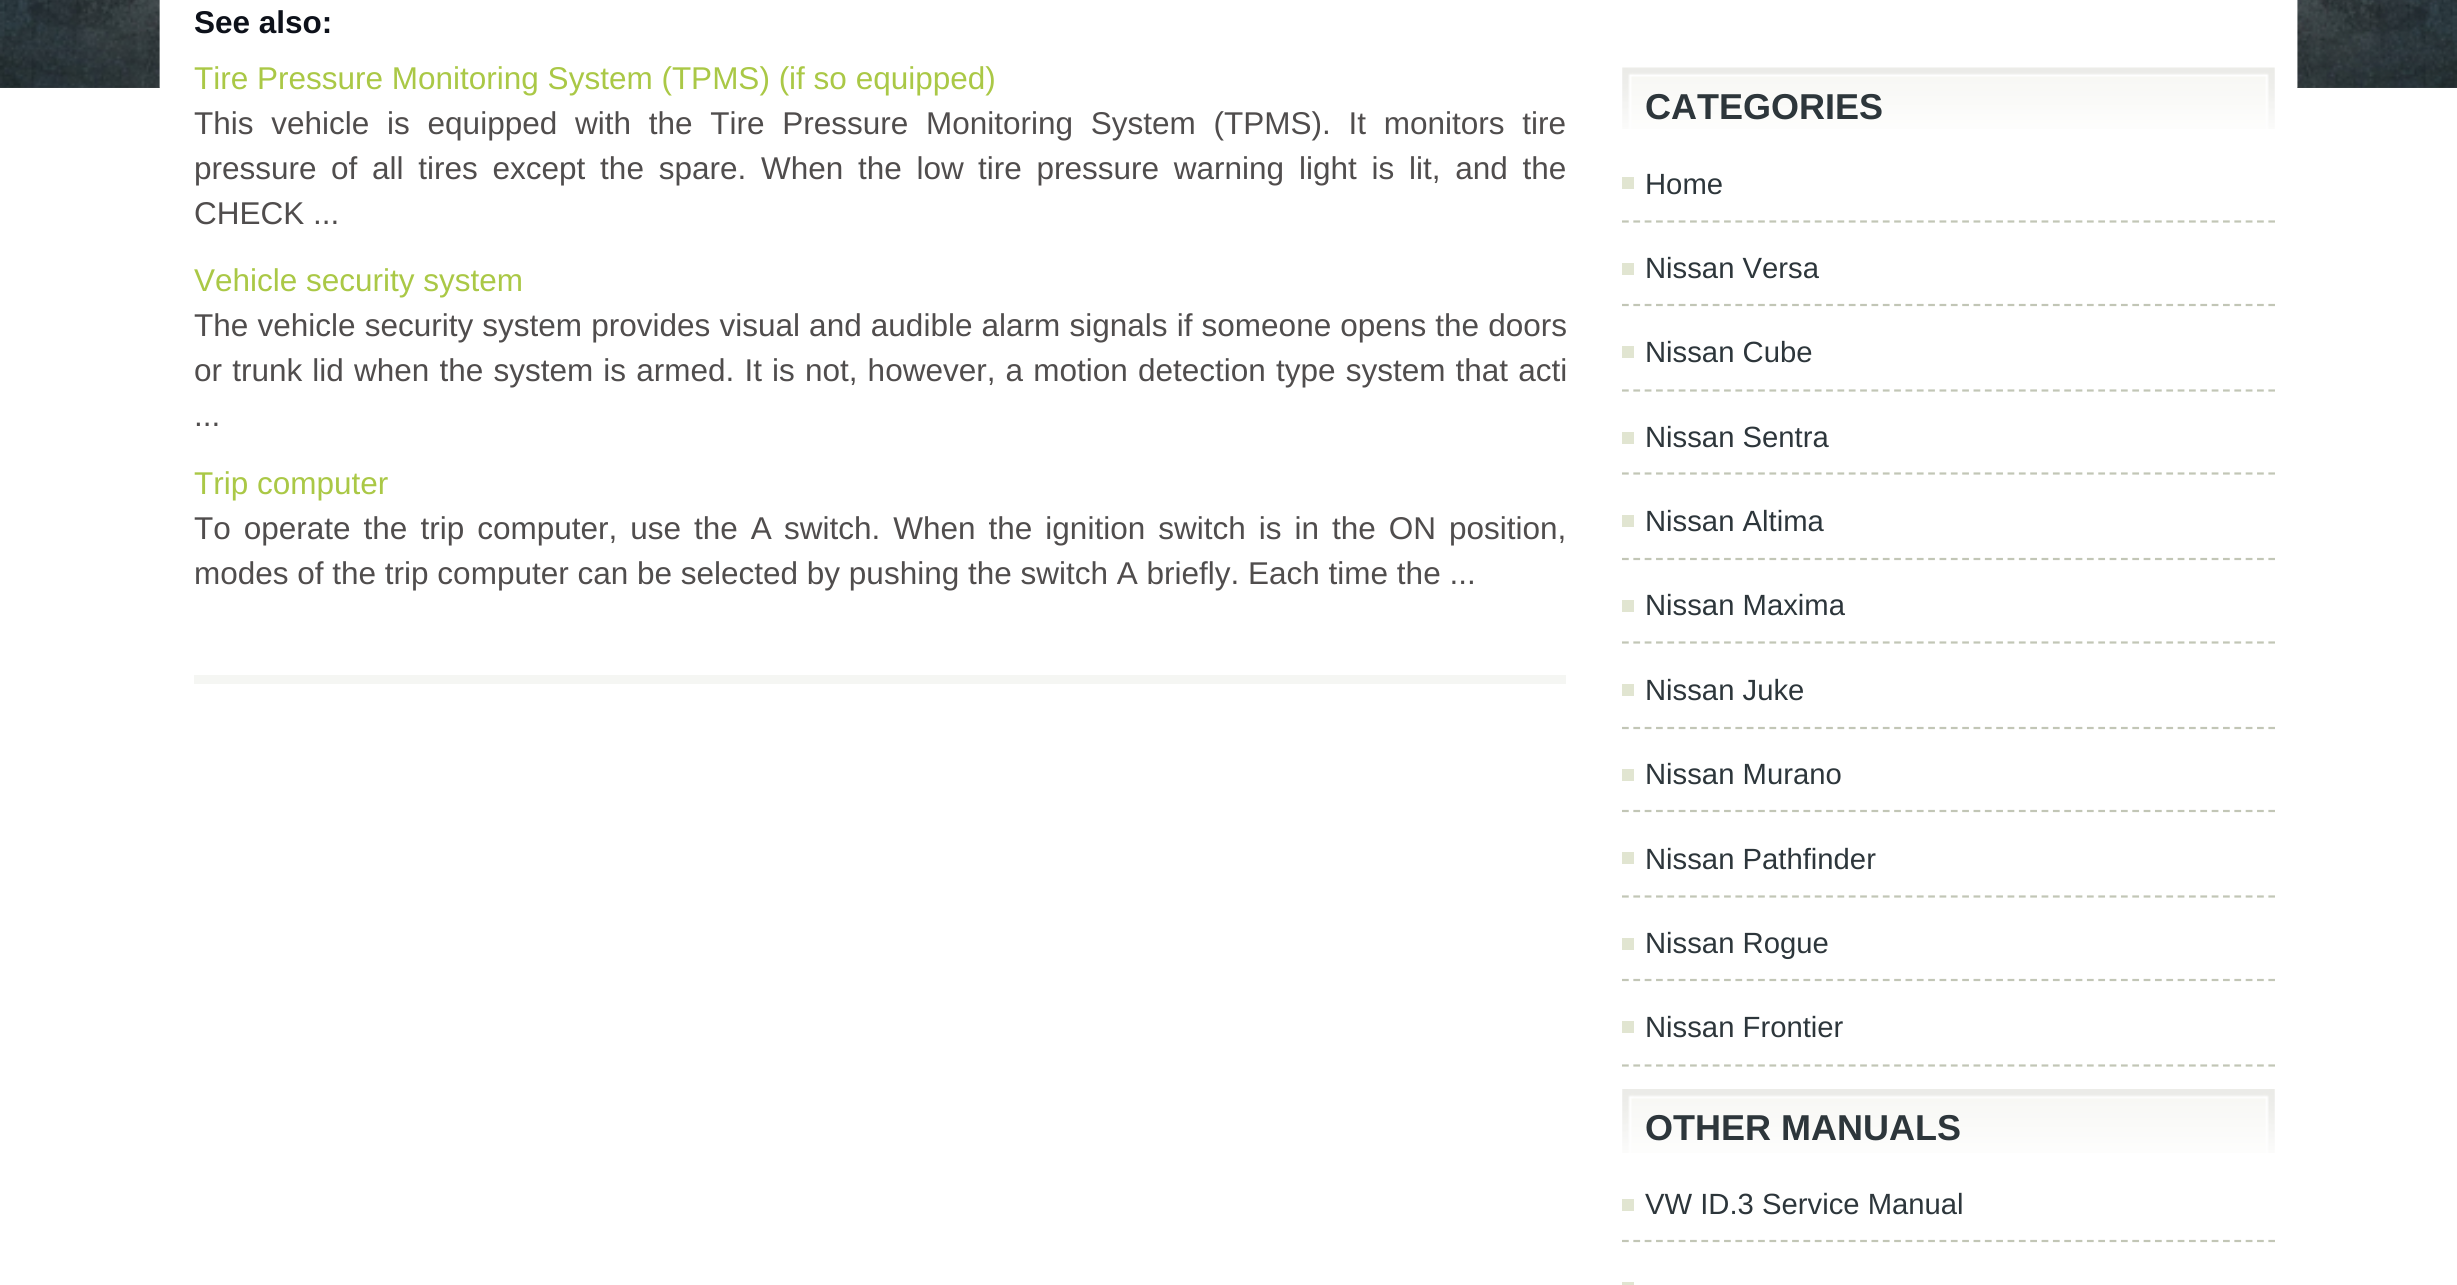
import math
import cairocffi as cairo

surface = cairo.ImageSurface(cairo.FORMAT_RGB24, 2457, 1285)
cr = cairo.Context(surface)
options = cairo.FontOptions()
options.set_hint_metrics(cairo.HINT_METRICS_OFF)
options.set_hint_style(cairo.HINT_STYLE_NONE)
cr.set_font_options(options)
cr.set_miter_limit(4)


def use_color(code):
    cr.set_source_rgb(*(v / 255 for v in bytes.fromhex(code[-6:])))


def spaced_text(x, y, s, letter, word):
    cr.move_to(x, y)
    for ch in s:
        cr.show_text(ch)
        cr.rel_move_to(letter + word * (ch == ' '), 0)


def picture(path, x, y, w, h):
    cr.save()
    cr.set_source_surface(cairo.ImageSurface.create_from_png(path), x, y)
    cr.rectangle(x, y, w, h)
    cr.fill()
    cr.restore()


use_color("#ffffff")
cr.paint()
picture("img1.png", 0, 87, 2457, 1)
picture("img2.png", 0, 0, 2457, 88)
use_color("#ffffff")
cr.rectangle(160, 0, 2137, 88)
cr.fill()
use_color("#f5f6f3")
cr.rectangle(194, 675, 1372, 9)
cr.fill()
cr.select_font_face("Liberation Sans", cairo.FONT_SLANT_NORMAL, cairo.FONT_WEIGHT_BOLD)
cr.set_font_size(31.5)
use_color("#0d111a")
cr.move_to(194, 33)
cr.show_text("See also:")
cr.select_font_face("Liberation Sans")
use_color("#aac846")
cr.move_to(194, 89)
cr.show_text("Tire Pressure Monitoring System (TPMS) (if so equipped)")
use_color("#504d4d")
spaced_text(194, 134, "This vehicle is equipped with the Tire Pressure", 0, 9)
spaced_text(926, 134, "Monitoring System (TPMS). It monitors tire", 0, 9)
cr.move_to(194, 179)
cr.show_text("pressure")
spaced_text(331, 179, "of all tires except the spare. When the low", 0, 6)
spaced_text(978, 179, "tire pressure warning light is lit, and the", 0, 6)
cr.move_to(194, 224)
cr.show_text("CHECK ...")
use_color("#aac846")
cr.move_to(194, 291)
cr.show_text("Vehicle security system")
use_color("#504d4d")
spaced_text(194, 336, "The vehicle security system provides visual and audible alarm signals if someone opens the doors", 0, 0.4)
spaced_text(194, 381, "or trunk lid when the system is armed. It is not, however, a motion detection type system that acti", 0, 1.4)
cr.move_to(194, 426)
cr.show_text("...")
use_color("#aac846")
cr.move_to(194, 494)
cr.show_text("Trip computer")
use_color("#504d4d")
spaced_text(194, 539, "To operate the trip computer, use the A", 0, 4.25)
spaced_text(784, 539, "switch. When the ignition switch is in the ON position,", 0, 4.25)
cr.move_to(194, 584)
cr.show_text("modes of the trip computer can be selected by pushing the switch A briefly. Each time the ...")
picture("img3.png", 1622, 67, 653, 62)
cr.select_font_face("Liberation Sans", cairo.FONT_SLANT_NORMAL, cairo.FONT_WEIGHT_BOLD)
cr.set_font_size(36)
use_color("#2d363b")
cr.move_to(1645, 119)
cr.show_text("CATEGORIES")
use_color("#e1e5d1")
cr.rectangle(1622, 177, 12, 12)
cr.fill()
cr.new_path()
cr.move_to(1622, 221.5)
cr.line_to(2275, 221.5)
use_color("#c2c6b6")
cr.set_line_width(2.2)
cr.set_dash([6.75, 4.59])
cr.stroke()
cr.select_font_face("Liberation Sans")
cr.set_font_size(29.25)
use_color("#2d363b")
cr.move_to(1645, 194)
cr.show_text("Home")
use_color("#e1e5d1")
cr.rectangle(1622, 263, 12, 12)
cr.fill()
cr.new_path()
cr.move_to(1622, 305)
cr.line_to(2275, 305)
use_color("#c2c6b6")
cr.stroke()
use_color("#2d363b")
cr.move_to(1645, 278)
cr.show_text("Nissan Versa")
use_color("#e1e5d1")
cr.rectangle(1622, 346, 12, 12)
cr.fill()
cr.new_path()
cr.move_to(1622, 390.5)
cr.line_to(2275, 390.5)
use_color("#c2c6b6")
cr.stroke()
use_color("#2d363b")
cr.move_to(1645, 362)
cr.show_text("Nissan Cube")
use_color("#e1e5d1")
cr.rectangle(1622, 432, 12, 12)
cr.fill()
cr.new_path()
cr.move_to(1622, 473.5)
cr.line_to(2275, 473.5)
use_color("#c2c6b6")
cr.stroke()
use_color("#2d363b")
cr.move_to(1645, 447)
cr.show_text("Nissan Sentra")
use_color("#e1e5d1")
cr.rectangle(1622, 515, 12, 12)
cr.fill()
cr.new_path()
cr.move_to(1622, 559)
cr.line_to(2275, 559)
use_color("#c2c6b6")
cr.stroke()
use_color("#2d363b")
cr.move_to(1645, 531)
cr.show_text("Nissan Altima")
use_color("#e1e5d1")
cr.rectangle(1622, 600, 12, 12)
cr.fill()
cr.new_path()
cr.move_to(1622, 642.5)
cr.line_to(2275, 642.5)
use_color("#c2c6b6")
cr.stroke()
use_color("#2d363b")
cr.move_to(1645, 615)
cr.show_text("Nissan Maxima")
use_color("#e1e5d1")
cr.rectangle(1622, 684, 12, 12)
cr.fill()
cr.new_path()
cr.move_to(1622, 728)
cr.line_to(2275, 728)
use_color("#c2c6b6")
cr.stroke()
use_color("#2d363b")
cr.move_to(1645, 700)
cr.show_text("Nissan Juke")
use_color("#e1e5d1")
cr.rectangle(1622, 769, 12, 12)
cr.fill()
cr.new_path()
cr.move_to(1622, 811)
cr.line_to(2275, 811)
use_color("#c2c6b6")
cr.stroke()
use_color("#2d363b")
cr.move_to(1645, 784)
cr.show_text("Nissan Murano")
use_color("#e1e5d1")
cr.rectangle(1622, 852, 12, 12)
cr.fill()
cr.new_path()
cr.move_to(1622, 896.5)
cr.line_to(2275, 896.5)
use_color("#c2c6b6")
cr.stroke()
use_color("#2d363b")
cr.move_to(1645, 869)
cr.show_text("Nissan Pathfinder")
use_color("#e1e5d1")
cr.rectangle(1622, 938, 12, 12)
cr.fill()
cr.new_path()
cr.move_to(1622, 980)
cr.line_to(2275, 980)
use_color("#c2c6b6")
cr.stroke()
use_color("#2d363b")
cr.move_to(1645, 953)
cr.show_text("Nissan Rogue")
use_color("#e1e5d1")
cr.rectangle(1622, 1021, 12, 12)
cr.fill()
cr.new_path()
cr.move_to(1622, 1065.5)
cr.line_to(2275, 1065.5)
use_color("#c2c6b6")
cr.stroke()
use_color("#2d363b")
cr.move_to(1645, 1037)
cr.show_text("Nissan Frontier")
picture("img4.png", 1622, 1089, 653, 64)
cr.select_font_face("Liberation Sans", cairo.FONT_SLANT_NORMAL, cairo.FONT_WEIGHT_BOLD)
cr.set_font_size(36)
cr.move_to(1645, 1140)
cr.show_text("OTHER MANUALS")
use_color("#e1e5d1")
cr.rectangle(1622, 1199, 12, 12)
cr.fill()
cr.new_path()
cr.move_to(1622, 1241)
cr.line_to(2275, 1241)
use_color("#c2c6b6")
cr.stroke()
cr.select_font_face("Liberation Sans")
cr.set_font_size(29.25)
use_color("#2d363b")
cr.move_to(1645, 1214)
cr.show_text("VW ID.3 Service Manual")
use_color("#e1e5d1")
cr.rectangle(1622, 1282, 12, 3)
cr.fill()
surface.write_to_png("result.png")
